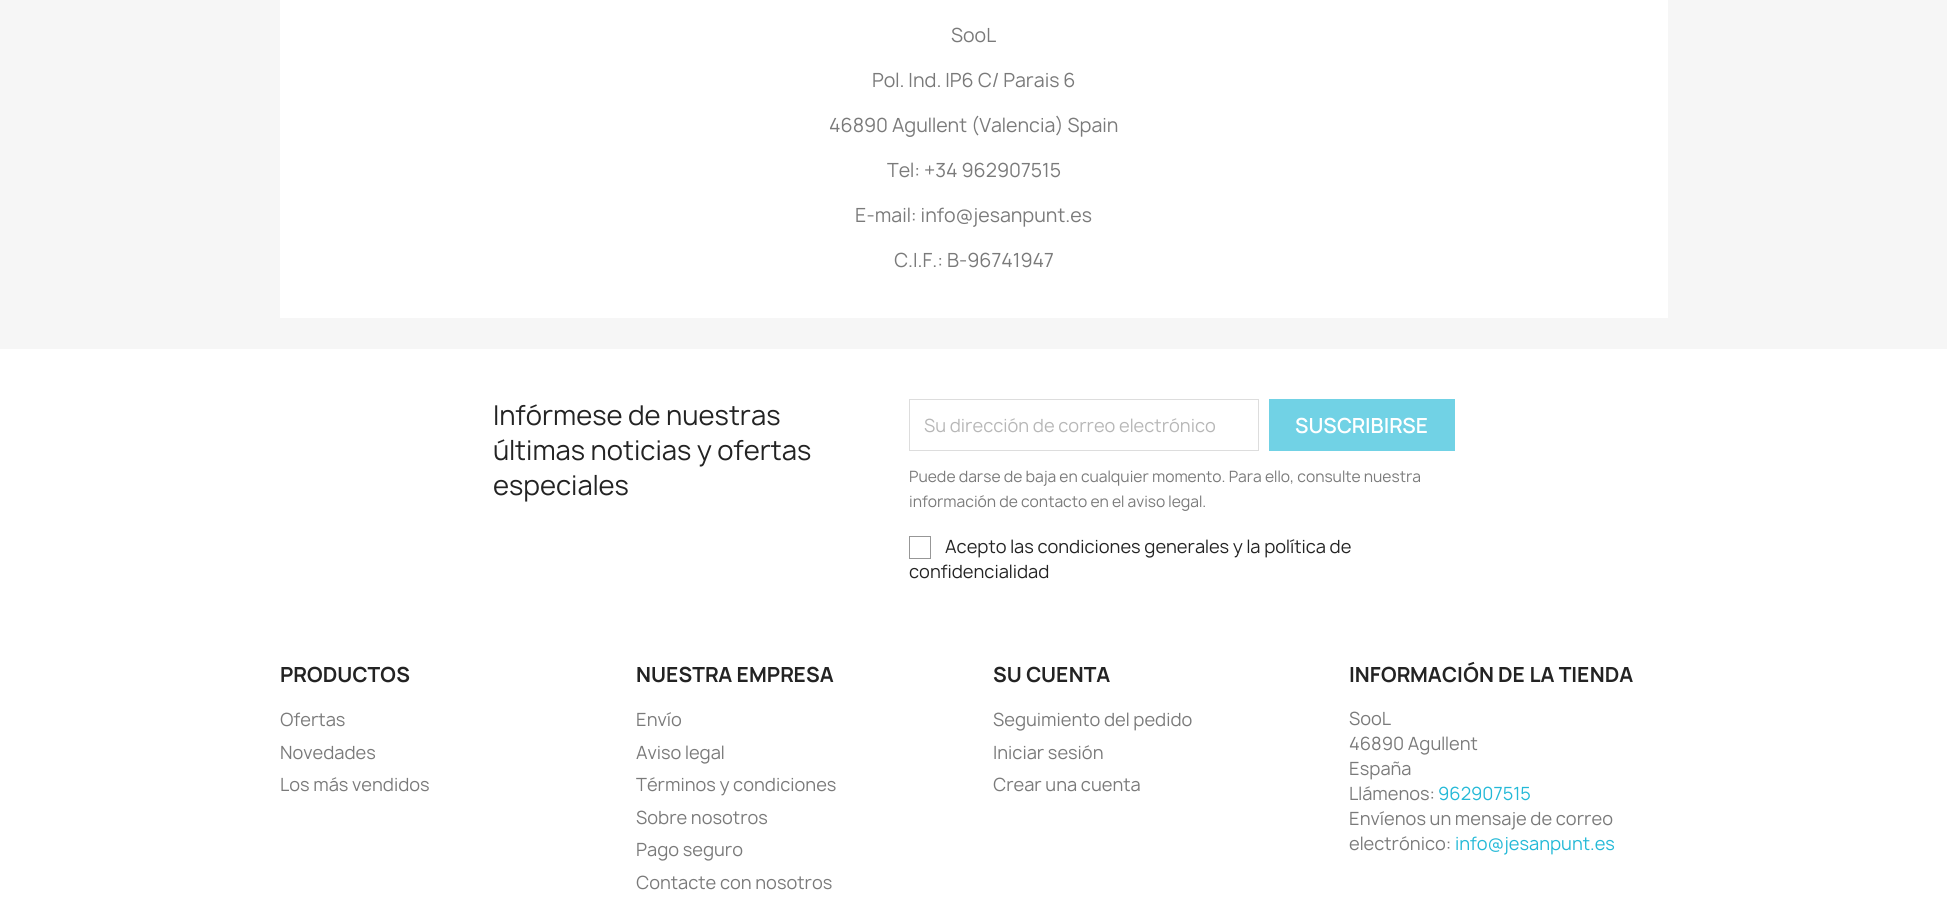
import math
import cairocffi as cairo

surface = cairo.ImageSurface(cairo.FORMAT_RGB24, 1947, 911)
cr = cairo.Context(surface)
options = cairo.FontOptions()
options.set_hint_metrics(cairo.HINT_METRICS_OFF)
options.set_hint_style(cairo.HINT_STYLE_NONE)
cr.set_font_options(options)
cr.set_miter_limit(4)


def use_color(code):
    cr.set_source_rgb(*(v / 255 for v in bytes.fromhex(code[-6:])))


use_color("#ffffff")
cr.paint()
use_color("#f6f6f6")
cr.rectangle(0, 0, 1947, 349)
cr.fill()
use_color("#ffffff")
cr.rectangle(280, 0, 1388, 318)
cr.fill()
cr.select_font_face("Manrope")
cr.set_font_size(18.75)
use_color("#7a7a7a")
cr.move_to(951, 42)
cr.show_text("SooL")
cr.move_to(872, 87)
cr.show_text("Pol. Ind. IP6 C/ Parais 6")
cr.move_to(829, 132)
cr.show_text("46890 Agullent (Valencia) Spain")
cr.move_to(887, 177)
cr.show_text("Tel: +34 962907515")
cr.move_to(855, 222)
cr.show_text("E-mail: info@jesanpunt.es")
cr.move_to(894, 267)
cr.show_text("C.I.F.: B-96741947")
cr.set_font_size(26.25)
use_color("#232323")
cr.move_to(493, 425)
cr.show_text("Infórmese de nuestras")
cr.move_to(493, 460)
cr.show_text("últimas noticias y ofertas")
cr.move_to(493, 495)
cr.show_text("especiales")
cr.rectangle(909.5, 399.5, 349, 51)
use_color("#dddddd")
cr.set_line_width(1)
cr.stroke()
cr.set_font_size(17.5)
use_color("#b7b7b7")
cr.move_to(924, 432)
cr.show_text("Su dirección de correo electrónico")
use_color("#71d2e5")
cr.rectangle(1269, 399, 186, 52)
cr.fill()
cr.select_font_face("Manrope SemiBold")
cr.set_font_size(20)
use_color("#ffffff")
cr.move_to(1295, 433)
cr.show_text("SUSCRIBIRSE")
cr.select_font_face("Manrope")
cr.set_font_size(15)
use_color("#7a7a7a")
cr.move_to(909, 482)
cr.show_text("Puede darse de baja en cualquier momento. Para ello, consulte nuestra")
cr.move_to(909, 507)
cr.show_text("información de contacto en el aviso legal.")
cr.rectangle(909.5, 536.5, 21, 22)
use_color("#979797")
cr.stroke()
cr.set_font_size(17.5)
use_color("#232323")
cr.move_to(945, 553)
cr.show_text("Acepto las condiciones generales y la política de")
cr.move_to(909, 578)
cr.show_text("confidencialidad")
cr.select_font_face("Manrope", cairo.FONT_SLANT_NORMAL, cairo.FONT_WEIGHT_BOLD)
cr.set_font_size(20)
cr.move_to(280, 682)
cr.show_text("PRODUCTOS")
cr.select_font_face("Manrope")
cr.set_font_size(17.5)
use_color("#7a7a7a")
cr.move_to(280, 726)
cr.show_text("Ofertas")
cr.move_to(280, 759)
cr.show_text("Novedades")
cr.move_to(280, 791)
cr.show_text("Los más vendidos")
cr.select_font_face("Manrope", cairo.FONT_SLANT_NORMAL, cairo.FONT_WEIGHT_BOLD)
cr.set_font_size(20)
use_color("#232323")
cr.move_to(636, 682)
cr.show_text("NUESTRA EMPRESA")
cr.select_font_face("Manrope")
cr.set_font_size(17.5)
use_color("#7a7a7a")
cr.move_to(636, 726)
cr.show_text("Envío")
cr.move_to(636, 759)
cr.show_text("Aviso legal")
cr.move_to(636, 791)
cr.show_text("Términos y condiciones")
cr.move_to(636, 824)
cr.show_text("Sobre nosotros")
cr.move_to(636, 856)
cr.show_text("Pago seguro")
cr.move_to(636, 889)
cr.show_text("Contacte con nosotros")
cr.select_font_face("Manrope", cairo.FONT_SLANT_NORMAL, cairo.FONT_WEIGHT_BOLD)
cr.set_font_size(20)
use_color("#232323")
cr.move_to(993, 682)
cr.show_text("SU CUENTA")
cr.select_font_face("Manrope")
cr.set_font_size(17.5)
use_color("#7a7a7a")
cr.move_to(993, 726)
cr.show_text("Seguimiento del pedido")
cr.move_to(993, 759)
cr.show_text("Iniciar sesión")
cr.move_to(993, 791)
cr.show_text("Crear una cuenta")
cr.select_font_face("Manrope", cairo.FONT_SLANT_NORMAL, cairo.FONT_WEIGHT_BOLD)
cr.set_font_size(20)
use_color("#232323")
cr.move_to(1349, 682)
cr.show_text("INFORMACIÓN DE LA TIENDA")
cr.select_font_face("Manrope")
cr.set_font_size(17.5)
use_color("#7a7a7a")
cr.move_to(1349, 725)
cr.show_text("SooL")
cr.move_to(1349, 750)
cr.show_text("46890 Agullent")
cr.move_to(1349, 775)
cr.show_text("España")
cr.move_to(1349, 800)
cr.show_text("Llámenos:")
use_color("#24b9d7")
cr.move_to(1438, 800)
cr.show_text("962907515")
use_color("#7a7a7a")
cr.move_to(1349, 825)
cr.show_text("Envíenos un mensaje de correo")
cr.move_to(1349, 850)
cr.show_text("electrónico:")
use_color("#24b9d7")
cr.move_to(1455, 850)
cr.show_text("info@jesanpunt.es")
surface.write_to_png("result.png")
